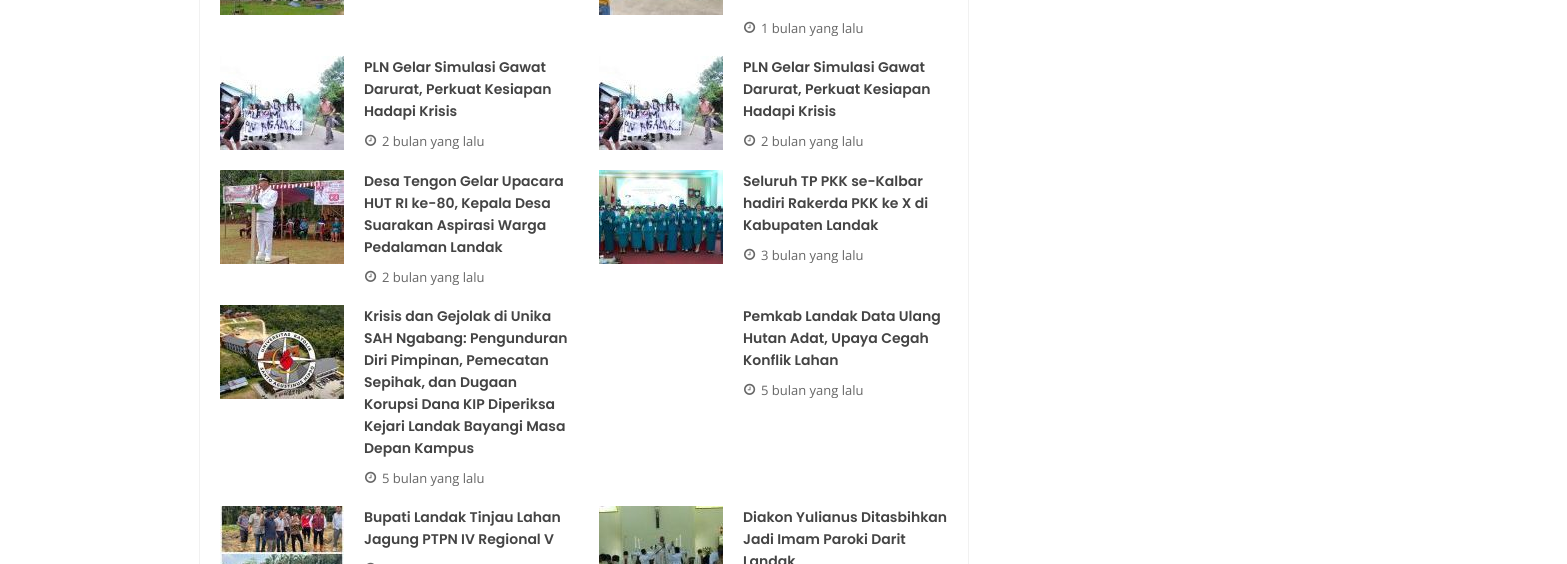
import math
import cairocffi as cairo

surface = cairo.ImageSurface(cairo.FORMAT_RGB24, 1567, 564)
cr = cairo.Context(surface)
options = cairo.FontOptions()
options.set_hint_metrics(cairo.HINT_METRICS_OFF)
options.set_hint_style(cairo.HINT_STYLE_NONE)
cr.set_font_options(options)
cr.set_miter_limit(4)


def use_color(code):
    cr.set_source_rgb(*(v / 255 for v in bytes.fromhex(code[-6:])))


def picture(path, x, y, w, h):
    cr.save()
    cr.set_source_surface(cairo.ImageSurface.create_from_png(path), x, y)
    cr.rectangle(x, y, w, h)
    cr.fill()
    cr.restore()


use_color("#ffffff")
cr.paint()
cr.rectangle(199.5, -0.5, 769, 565)
use_color("#f1f1f1")
cr.set_line_width(1)
cr.stroke()
picture("img1.png", 220, 0, 124, 15)
picture("img2.png", 599, 0, 124, 15)
picture("img3.png", 744, 21, 12, 12)
cr.save()
cr.rectangle(743, 15, 205, 21)
cr.clip()
cr.select_font_face("Open Sans")
cr.set_font_size(13)
use_color("#666666")
cr.move_to(761, 33)
cr.show_text("1 bulan yang lalu")
cr.restore()
picture("img4.png", 220, 56, 124, 94)
cr.select_font_face("Poppins SemiBold")
cr.set_font_size(14)
use_color("#444444")
cr.move_to(364, 72)
cr.show_text("PLN Gelar Simulasi Gawat")
cr.move_to(364, 94)
cr.show_text("Darurat, Perkuat Kesiapan")
cr.move_to(364, 116)
cr.show_text("Hadapi Krisis")
picture("img3.png", 365, 134, 12, 12)
cr.save()
cr.rectangle(364, 128, 205, 21)
cr.clip()
cr.select_font_face("Open Sans")
cr.set_font_size(13)
use_color("#666666")
cr.move_to(382, 146)
cr.show_text("2 bulan yang lalu")
cr.restore()
picture("img4.png", 599, 56, 124, 94)
cr.move_to(743, 72)
cr.show_text("PLN Gelar Simulasi Gawat")
cr.move_to(743, 94)
cr.show_text("Darurat, Perkuat Kesiapan")
cr.move_to(743, 116)
cr.show_text("Hadapi Krisis")
picture("img3.png", 744, 134, 12, 12)
cr.save()
cr.rectangle(743, 128, 205, 21)
cr.clip()
cr.select_font_face("Open Sans")
cr.set_font_size(13)
use_color("#666666")
cr.move_to(761, 146)
cr.show_text("2 bulan yang lalu")
cr.restore()
picture("img5.png", 220, 170, 124, 94)
cr.move_to(364, 186)
cr.show_text("Desa Tengon Gelar Upacara")
cr.move_to(364, 208)
cr.show_text("HUT RI ke-80, Kepala Desa")
cr.move_to(364, 230)
cr.show_text("Suarakan Aspirasi Warga")
cr.move_to(364, 252)
cr.show_text("Pedalaman Landak")
picture("img3.png", 365, 270, 12, 12)
cr.save()
cr.rectangle(364, 264, 205, 21)
cr.clip()
cr.select_font_face("Open Sans")
cr.set_font_size(13)
use_color("#666666")
cr.move_to(382, 282)
cr.show_text("2 bulan yang lalu")
cr.restore()
picture("img6.png", 599, 170, 124, 94)
cr.move_to(743, 186)
cr.show_text("Seluruh TP PKK se-Kalbar")
cr.move_to(743, 208)
cr.show_text("hadiri Rakerda PKK ke X di")
cr.move_to(743, 230)
cr.show_text("Kabupaten Landak")
picture("img3.png", 744, 248, 12, 12)
cr.save()
cr.rectangle(743, 242, 205, 21)
cr.clip()
cr.select_font_face("Open Sans")
cr.set_font_size(13)
use_color("#666666")
cr.move_to(761, 260)
cr.show_text("3 bulan yang lalu")
cr.restore()
picture("img7.png", 220, 305, 124, 94)
cr.move_to(364, 321)
cr.show_text("Krisis dan Gejolak di Unika")
cr.move_to(364, 343)
cr.show_text("SAH Ngabang: Pengunduran")
cr.move_to(364, 365)
cr.show_text("Diri Pimpinan, Pemecatan")
cr.move_to(364, 387)
cr.show_text("Sepihak, dan Dugaan")
cr.move_to(364, 409)
cr.show_text("Korupsi Dana KIP Diperiksa")
cr.move_to(364, 431)
cr.show_text("Kejari Landak Bayangi Masa")
cr.move_to(364, 453)
cr.show_text("Depan Kampus")
picture("img3.png", 365, 471, 12, 12)
cr.save()
cr.rectangle(364, 465, 205, 21)
cr.clip()
cr.select_font_face("Open Sans")
cr.set_font_size(13)
use_color("#666666")
cr.move_to(382, 483)
cr.show_text("5 bulan yang lalu")
cr.restore()
cr.move_to(743, 321)
cr.show_text("Pemkab Landak Data Ulang")
cr.move_to(743, 343)
cr.show_text("Hutan Adat, Upaya Cegah")
cr.move_to(743, 365)
cr.show_text("Konflik Lahan")
picture("img3.png", 744, 383, 12, 12)
cr.save()
cr.rectangle(743, 377, 205, 21)
cr.clip()
cr.select_font_face("Open Sans")
cr.set_font_size(13)
use_color("#666666")
cr.move_to(761, 395)
cr.show_text("5 bulan yang lalu")
cr.restore()
picture("img8.png", 220, 506, 124, 58)
cr.move_to(364, 522)
cr.show_text("Bupati Landak Tinjau Lahan")
cr.move_to(364, 544)
cr.show_text("Jagung PTPN IV Regional V")
picture("img9.png", 367, 562, 7, 2)
picture("img10.png", 599, 506, 124, 58)
cr.move_to(743, 522)
cr.show_text("Diakon Yulianus Ditasbihkan")
cr.move_to(743, 544)
cr.show_text("Jadi Imam Paroki Darit")
cr.move_to(743, 566)
cr.show_text("Landak")
surface.write_to_png("result.png")
